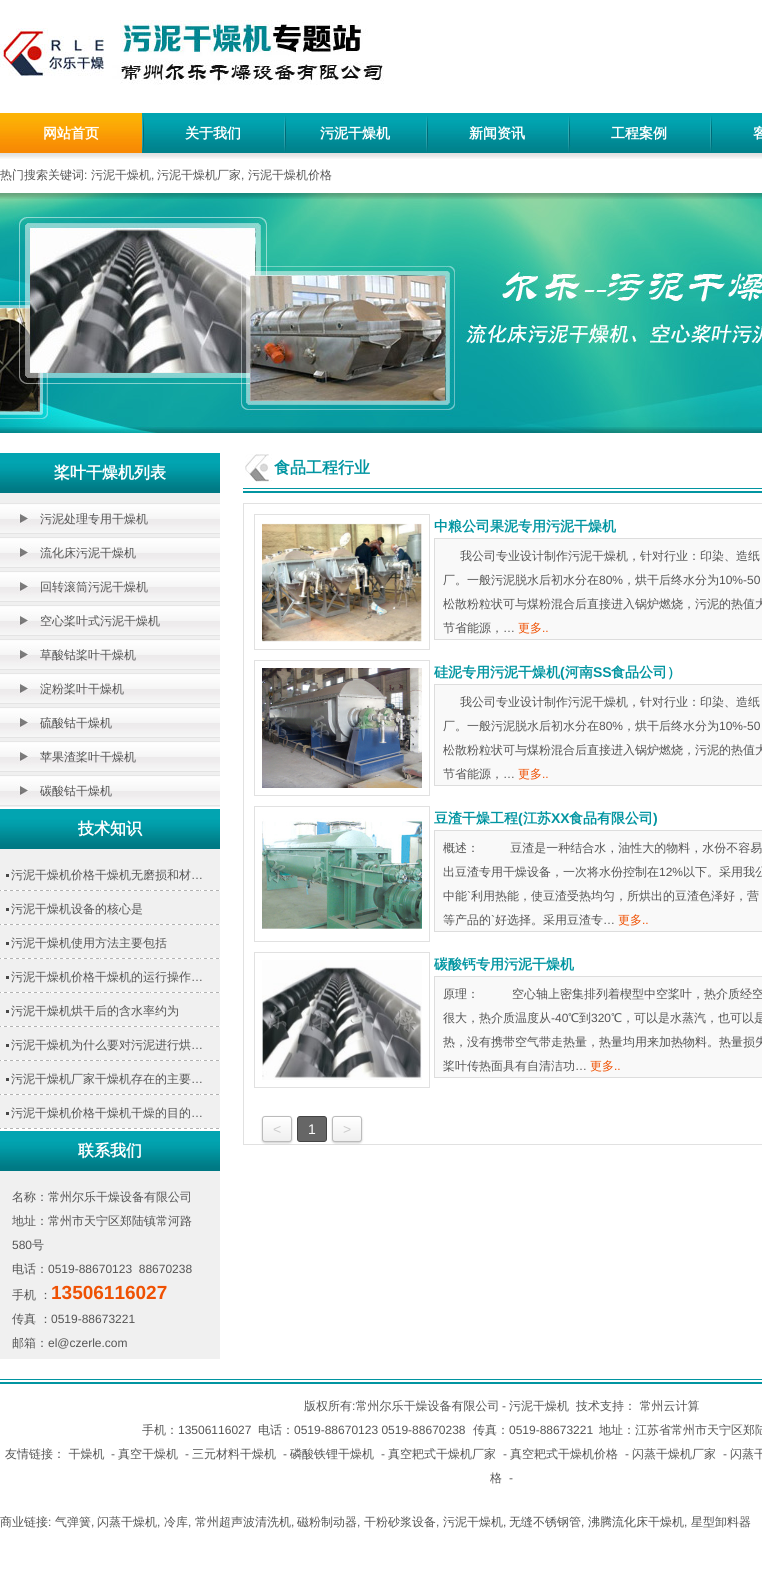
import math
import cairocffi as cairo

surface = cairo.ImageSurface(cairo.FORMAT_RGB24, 762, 1595)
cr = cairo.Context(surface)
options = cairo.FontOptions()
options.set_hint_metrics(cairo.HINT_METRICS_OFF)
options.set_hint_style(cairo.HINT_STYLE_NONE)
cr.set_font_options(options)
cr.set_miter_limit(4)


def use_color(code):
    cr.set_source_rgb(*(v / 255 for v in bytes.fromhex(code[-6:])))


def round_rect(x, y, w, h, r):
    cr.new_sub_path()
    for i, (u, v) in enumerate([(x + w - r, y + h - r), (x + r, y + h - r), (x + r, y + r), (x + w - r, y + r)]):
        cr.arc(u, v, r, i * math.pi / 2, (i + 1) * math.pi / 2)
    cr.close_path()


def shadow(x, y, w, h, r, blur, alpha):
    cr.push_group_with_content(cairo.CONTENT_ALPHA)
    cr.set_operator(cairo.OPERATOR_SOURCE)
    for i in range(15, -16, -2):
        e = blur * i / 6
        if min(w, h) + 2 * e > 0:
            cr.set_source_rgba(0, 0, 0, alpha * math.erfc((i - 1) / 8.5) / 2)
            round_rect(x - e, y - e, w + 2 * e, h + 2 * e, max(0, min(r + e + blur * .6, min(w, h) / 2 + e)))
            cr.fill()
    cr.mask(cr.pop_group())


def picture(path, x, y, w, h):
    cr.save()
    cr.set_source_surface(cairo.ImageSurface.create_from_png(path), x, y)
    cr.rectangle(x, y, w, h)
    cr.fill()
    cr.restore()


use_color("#ffffff")
cr.paint()
picture("img1.png", 0, 20, 384, 65)
picture("img2.png", 142, 113, 620, 40)
picture("img3.png", 0, 113, 142, 40)
cr.select_font_face("WenQuanYi Zen Hei", cairo.FONT_SLANT_NORMAL, cairo.FONT_WEIGHT_BOLD)
cr.set_font_size(14)
use_color("#ffffff")
cr.move_to(43, 138)
cr.show_text("网站首页")
picture("img4.png", 142, 116, 3, 36)
cr.move_to(185, 138)
cr.show_text("关于我们")
picture("img4.png", 284, 116, 3, 36)
cr.move_to(320, 138)
cr.show_text("污泥干燥机")
picture("img4.png", 426, 116, 3, 36)
cr.move_to(469, 138)
cr.show_text("新闻资讯")
picture("img4.png", 568, 116, 3, 36)
cr.move_to(611, 138)
cr.show_text("工程案例")
picture("img4.png", 710, 116, 3, 36)
cr.move_to(753, 138)
cr.show_text("客")
picture("img5.png", 0, 153, 762, 6)
cr.select_font_face("WenQuanYi Zen Hei Medium")
cr.set_font_size(12)
use_color("#555555")
cr.move_to(0, 179)
cr.show_text("热门搜索关键词")
cr.select_font_face("Liberation Sans")
cr.move_to(84, 179)
cr.show_text(":")
cr.select_font_face("WenQuanYi Zen Hei Medium")
cr.move_to(91, 179)
cr.show_text("污泥干燥机")
cr.select_font_face("Liberation Sans")
cr.move_to(151, 179)
cr.show_text(",")
cr.select_font_face("WenQuanYi Zen Hei Medium")
cr.move_to(157, 179)
cr.show_text("污泥干燥机厂家")
cr.select_font_face("Liberation Sans")
cr.move_to(241, 179)
cr.show_text(",")
cr.select_font_face("WenQuanYi Zen Hei Medium")
cr.move_to(248, 179)
cr.show_text("污泥干燥机价格")
picture("img6.png", 0, 193, 762, 240)
use_color("#f0f0f0")
cr.rectangle(0, 493, 220, 314)
cr.fill()
picture("img7.png", 0, 453, 220, 40)
cr.select_font_face("WenQuanYi Zen Hei", cairo.FONT_SLANT_NORMAL, cairo.FONT_WEIGHT_BOLD)
cr.set_font_size(16)
use_color("#ffffff")
cr.move_to(54, 478)
cr.show_text("桨叶干燥机列表")
picture("img8.png", 0, 503, 220, 31)
cr.select_font_face("WenQuanYi Zen Hei Medium")
cr.set_font_size(12)
use_color("#555555")
cr.move_to(40, 523)
cr.show_text("污泥处理专用干燥机")
picture("img8.png", 0, 537, 220, 31)
cr.move_to(40, 557)
cr.show_text("流化床污泥干燥机")
picture("img8.png", 0, 571, 220, 31)
cr.move_to(40, 591)
cr.show_text("回转滚筒污泥干燥机")
picture("img8.png", 0, 605, 220, 31)
cr.move_to(40, 625)
cr.show_text("空心桨叶式污泥干燥机")
picture("img8.png", 0, 639, 220, 31)
cr.move_to(40, 659)
cr.show_text("草酸钴桨叶干燥机")
picture("img8.png", 0, 673, 220, 31)
cr.move_to(40, 693)
cr.show_text("淀粉桨叶干燥机")
picture("img8.png", 0, 707, 220, 31)
cr.move_to(40, 727)
cr.show_text("硫酸钴干燥机")
picture("img8.png", 0, 741, 220, 31)
cr.move_to(40, 761)
cr.show_text("苹果渣桨叶干燥机")
picture("img8.png", 0, 775, 220, 31)
cr.move_to(40, 795)
cr.show_text("碳酸钴干燥机")
use_color("#f0f0f0")
cr.rectangle(0, 849, 220, 279)
cr.fill()
picture("img7.png", 0, 809, 220, 40)
cr.select_font_face("WenQuanYi Zen Hei", cairo.FONT_SLANT_NORMAL, cairo.FONT_WEIGHT_BOLD)
cr.set_font_size(16)
use_color("#ffffff")
cr.move_to(78, 834)
cr.show_text("技术知识")
picture("img9.png", 0, 890, 220, 1)
cr.select_font_face("WenQuanYi Zen Hei Medium")
cr.set_font_size(12)
use_color("#555555")
cr.move_to(11, 879)
cr.show_text("污泥干燥机价格干燥机无磨损和材")
use_color("#494949")
cr.rectangle(6, 874, 3, 3)
cr.fill()
cr.select_font_face("Liberation Sans")
use_color("#555555")
cr.move_to(191, 879)
cr.show_text("…")
picture("img9.png", 0, 924, 220, 1)
cr.select_font_face("WenQuanYi Zen Hei Medium")
cr.move_to(11, 913)
cr.show_text("污泥干燥机设备的核心是")
use_color("#494949")
cr.rectangle(6, 908, 3, 3)
cr.fill()
picture("img9.png", 0, 958, 220, 1)
use_color("#555555")
cr.move_to(11, 947)
cr.show_text("污泥干燥机使用方法主要包括")
use_color("#494949")
cr.rectangle(6, 942, 3, 3)
cr.fill()
picture("img9.png", 0, 992, 220, 1)
use_color("#555555")
cr.move_to(11, 981)
cr.show_text("污泥干燥机价格干燥机的运行操作")
use_color("#494949")
cr.rectangle(6, 976, 3, 3)
cr.fill()
cr.select_font_face("Liberation Sans")
use_color("#555555")
cr.move_to(191, 981)
cr.show_text("…")
picture("img9.png", 0, 1026, 220, 1)
cr.select_font_face("WenQuanYi Zen Hei Medium")
cr.move_to(11, 1015)
cr.show_text("污泥干燥机烘干后的含水率约为")
use_color("#494949")
cr.rectangle(6, 1010, 3, 3)
cr.fill()
picture("img9.png", 0, 1060, 220, 1)
use_color("#555555")
cr.move_to(11, 1049)
cr.show_text("污泥干燥机为什么要对污泥进行烘")
use_color("#494949")
cr.rectangle(6, 1044, 3, 3)
cr.fill()
cr.select_font_face("Liberation Sans")
use_color("#555555")
cr.move_to(191, 1049)
cr.show_text("…")
picture("img9.png", 0, 1094, 220, 1)
cr.select_font_face("WenQuanYi Zen Hei Medium")
cr.move_to(11, 1083)
cr.show_text("污泥干燥机厂家干燥机存在的主要")
use_color("#494949")
cr.rectangle(6, 1078, 3, 3)
cr.fill()
cr.select_font_face("Liberation Sans")
use_color("#555555")
cr.move_to(191, 1083)
cr.show_text("…")
picture("img9.png", 0, 1128, 220, 1)
cr.select_font_face("WenQuanYi Zen Hei Medium")
cr.move_to(11, 1117)
cr.show_text("污泥干燥机价格干燥机干燥的目的")
use_color("#494949")
cr.rectangle(6, 1112, 3, 3)
cr.fill()
cr.select_font_face("Liberation Sans")
use_color("#555555")
cr.move_to(191, 1117)
cr.show_text("…")
use_color("#f0f0f0")
cr.rectangle(0, 1171, 220, 188)
cr.fill()
picture("img7.png", 0, 1131, 220, 40)
cr.select_font_face("WenQuanYi Zen Hei", cairo.FONT_SLANT_NORMAL, cairo.FONT_WEIGHT_BOLD)
cr.set_font_size(16)
use_color("#ffffff")
cr.move_to(78, 1156)
cr.show_text("联系我们")
cr.select_font_face("WenQuanYi Zen Hei Medium")
cr.set_font_size(12)
use_color("#555555")
cr.move_to(12, 1201)
cr.show_text("名称：常州尔乐干燥设备有限公司")
cr.move_to(12, 1225)
cr.show_text("地址：常州市天宁区郑陆镇常河路")
cr.select_font_face("Liberation Sans")
cr.move_to(12, 1249)
cr.show_text("580")
cr.select_font_face("WenQuanYi Zen Hei Medium")
cr.move_to(32, 1249)
cr.show_text("号")
cr.move_to(12, 1273)
cr.show_text("电话：")
cr.select_font_face("Liberation Sans")
cr.move_to(48, 1273)
cr.show_text("0519-88670123  88670238")
cr.select_font_face("WenQuanYi Zen Hei Medium")
cr.move_to(12, 1299)
cr.show_text("手机 ：")
cr.select_font_face("Liberation Sans", cairo.FONT_SLANT_NORMAL, cairo.FONT_WEIGHT_BOLD)
cr.set_font_size(19)
use_color("#ef5103")
cr.move_to(51, 1299)
cr.show_text("13506116027")
cr.select_font_face("WenQuanYi Zen Hei Medium")
cr.set_font_size(12)
use_color("#555555")
cr.move_to(12, 1323)
cr.show_text("传真 ：")
cr.select_font_face("Liberation Sans")
cr.move_to(51, 1323)
cr.show_text("0519-88673221")
cr.select_font_face("WenQuanYi Zen Hei Medium")
cr.move_to(12, 1347)
cr.show_text("邮箱：")
cr.select_font_face("Liberation Sans")
cr.move_to(48, 1347)
cr.show_text("el@czerle.com")
picture("img10.png", 245, 454, 27, 28)
cr.select_font_face("WenQuanYi Zen Hei", cairo.FONT_SLANT_NORMAL, cairo.FONT_WEIGHT_BOLD)
cr.set_font_size(16)
use_color("#0195a1")
cr.move_to(274, 473)
cr.show_text("食品工程行业")
cr.rectangle(243, 488, 519, 1)
cr.fill()
cr.rectangle(243, 491, 519, 2)
cr.fill()
cr.rectangle(243.5, 503.5, 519, 641)
use_color("#e1e1e1")
cr.set_line_width(1)
cr.stroke()
cr.rectangle(254.5, 514.5, 175, 135)
cr.stroke()
picture("img11.png", 262, 523, 160, 119)
cr.set_font_size(14)
use_color("#0195a1")
cr.move_to(434, 531)
cr.show_text("中粮公司果泥专用污泥干燥机")
use_color("#f9f9f9")
cr.rectangle(434.5, 538.5, 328, 101)
cr.fill_preserve()
use_color("#dddddd")
cr.stroke()
cr.select_font_face("WenQuanYi Zen Hei Medium")
cr.set_font_size(12)
use_color("#555555")
cr.move_to(460, 560)
cr.show_text("我公司专业设计制作污泥干燥机，针对行业：印染、造纸")
cr.move_to(443, 584)
cr.show_text("厂。一般污泥脱水后初水分在")
cr.select_font_face("Liberation Sans")
cr.move_to(599, 584)
cr.show_text("80%")
cr.select_font_face("WenQuanYi Zen Hei Medium")
cr.move_to(623, 584)
cr.show_text("，烘干后终水分为")
cr.select_font_face("Liberation Sans")
cr.move_to(719, 584)
cr.show_text("10%-50")
cr.select_font_face("WenQuanYi Zen Hei Medium")
cr.move_to(443, 608)
cr.show_text("松散粉粒状可与煤粉混合后直接进入锅炉燃烧，污泥的热值大")
cr.move_to(443, 632)
cr.show_text("节省能源，")
cr.select_font_face("Liberation Sans")
cr.move_to(503, 632)
cr.show_text("…")
cr.select_font_face("WenQuanYi Zen Hei Medium")
use_color("#ef5103")
cr.move_to(518, 632)
cr.show_text("更多")
cr.select_font_face("Liberation Sans")
cr.move_to(542, 632)
cr.show_text("..")
cr.rectangle(254.5, 660.5, 175, 135)
use_color("#e1e1e1")
cr.stroke()
picture("img12.png", 262, 668, 160, 120)
cr.select_font_face("WenQuanYi Zen Hei", cairo.FONT_SLANT_NORMAL, cairo.FONT_WEIGHT_BOLD)
cr.set_font_size(14)
use_color("#0195a1")
cr.move_to(434, 677)
cr.show_text("硅泥专用污泥干燥机")
cr.select_font_face("Liberation Sans", cairo.FONT_SLANT_NORMAL, cairo.FONT_WEIGHT_BOLD)
cr.move_to(560, 677)
cr.show_text("(")
cr.select_font_face("WenQuanYi Zen Hei", cairo.FONT_SLANT_NORMAL, cairo.FONT_WEIGHT_BOLD)
cr.move_to(565, 677)
cr.show_text("河南")
cr.select_font_face("Liberation Sans", cairo.FONT_SLANT_NORMAL, cairo.FONT_WEIGHT_BOLD)
cr.move_to(593, 677)
cr.show_text("SS")
cr.select_font_face("WenQuanYi Zen Hei", cairo.FONT_SLANT_NORMAL, cairo.FONT_WEIGHT_BOLD)
cr.move_to(611, 677)
cr.show_text("食品公司）")
use_color("#f9f9f9")
cr.rectangle(434.5, 684.5, 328, 101)
cr.fill_preserve()
use_color("#dddddd")
cr.stroke()
cr.select_font_face("WenQuanYi Zen Hei Medium")
cr.set_font_size(12)
use_color("#555555")
cr.move_to(460, 706)
cr.show_text("我公司专业设计制作污泥干燥机，针对行业：印染、造纸")
cr.move_to(443, 730)
cr.show_text("厂。一般污泥脱水后初水分在")
cr.select_font_face("Liberation Sans")
cr.move_to(599, 730)
cr.show_text("80%")
cr.select_font_face("WenQuanYi Zen Hei Medium")
cr.move_to(623, 730)
cr.show_text("，烘干后终水分为")
cr.select_font_face("Liberation Sans")
cr.move_to(719, 730)
cr.show_text("10%-50")
cr.select_font_face("WenQuanYi Zen Hei Medium")
cr.move_to(443, 754)
cr.show_text("松散粉粒状可与煤粉混合后直接进入锅炉燃烧，污泥的热值大")
cr.move_to(443, 778)
cr.show_text("节省能源，")
cr.select_font_face("Liberation Sans")
cr.move_to(503, 778)
cr.show_text("…")
cr.select_font_face("WenQuanYi Zen Hei Medium")
use_color("#ef5103")
cr.move_to(518, 778)
cr.show_text("更多")
cr.select_font_face("Liberation Sans")
cr.move_to(542, 778)
cr.show_text("..")
cr.rectangle(254.5, 806.5, 175, 135)
use_color("#e1e1e1")
cr.stroke()
picture("img13.png", 262, 818, 160, 111)
cr.select_font_face("WenQuanYi Zen Hei", cairo.FONT_SLANT_NORMAL, cairo.FONT_WEIGHT_BOLD)
cr.set_font_size(14)
use_color("#0195a1")
cr.move_to(434, 823)
cr.show_text("豆渣干燥工程")
cr.select_font_face("Liberation Sans", cairo.FONT_SLANT_NORMAL, cairo.FONT_WEIGHT_BOLD)
cr.move_to(518, 823)
cr.show_text("(")
cr.select_font_face("WenQuanYi Zen Hei", cairo.FONT_SLANT_NORMAL, cairo.FONT_WEIGHT_BOLD)
cr.move_to(523, 823)
cr.show_text("江苏")
cr.select_font_face("Liberation Sans", cairo.FONT_SLANT_NORMAL, cairo.FONT_WEIGHT_BOLD)
cr.move_to(551, 823)
cr.show_text("XX")
cr.select_font_face("WenQuanYi Zen Hei", cairo.FONT_SLANT_NORMAL, cairo.FONT_WEIGHT_BOLD)
cr.move_to(569, 823)
cr.show_text("食品有限公司")
cr.select_font_face("Liberation Sans", cairo.FONT_SLANT_NORMAL, cairo.FONT_WEIGHT_BOLD)
cr.move_to(653, 823)
cr.show_text(")")
use_color("#f9f9f9")
cr.rectangle(434.5, 830.5, 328, 101)
cr.fill_preserve()
use_color("#dddddd")
cr.stroke()
cr.select_font_face("WenQuanYi Zen Hei Medium")
cr.set_font_size(12)
use_color("#555555")
cr.move_to(443, 852)
cr.show_text("概述： 　　 豆渣是一种结合水，油性大的物料，水份不容易")
cr.move_to(443, 876)
cr.show_text("出豆渣专用干燥设备，一次将水份控制在")
cr.select_font_face("Liberation Sans")
cr.move_to(659, 876)
cr.show_text("12%")
cr.select_font_face("WenQuanYi Zen Hei Medium")
cr.move_to(683, 876)
cr.show_text("以下。采用我公")
cr.move_to(443, 900)
cr.show_text("中能")
cr.select_font_face("Liberation Sans")
cr.move_to(467, 900)
cr.show_text("`")
cr.select_font_face("WenQuanYi Zen Hei Medium")
cr.move_to(471, 900)
cr.show_text("利用热能，使豆渣受热均匀，所烘出的豆渣色泽好，营")
cr.move_to(443, 924)
cr.show_text("等产品的")
cr.select_font_face("Liberation Sans")
cr.move_to(491, 924)
cr.show_text("`")
cr.select_font_face("WenQuanYi Zen Hei Medium")
cr.move_to(495, 924)
cr.show_text("好选择。采用豆渣专")
use_color("#ef5103")
cr.move_to(618, 924)
cr.show_text("更多")
cr.select_font_face("Liberation Sans")
use_color("#555555")
cr.move_to(603, 924)
cr.show_text("…")
use_color("#ef5103")
cr.move_to(642, 924)
cr.show_text("..")
cr.rectangle(254.5, 952.5, 175, 135)
use_color("#e1e1e1")
cr.stroke()
picture("img14.png", 262, 960, 160, 120)
cr.select_font_face("WenQuanYi Zen Hei", cairo.FONT_SLANT_NORMAL, cairo.FONT_WEIGHT_BOLD)
cr.set_font_size(14)
use_color("#0195a1")
cr.move_to(434, 969)
cr.show_text("碳酸钙专用污泥干燥机")
use_color("#f9f9f9")
cr.rectangle(434.5, 976.5, 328, 101)
cr.fill_preserve()
use_color("#dddddd")
cr.stroke()
cr.select_font_face("WenQuanYi Zen Hei Medium")
cr.set_font_size(12)
use_color("#555555")
cr.move_to(443, 998)
cr.show_text("原理：")
cr.move_to(512, 998)
cr.show_text("空心轴上密集排列着楔型中空桨叶，热介质经空")
cr.move_to(443, 1022)
cr.show_text("很大，热介质温度从")
cr.select_font_face("Liberation Sans")
cr.move_to(551, 1022)
cr.show_text("-40")
cr.select_font_face("WenQuanYi Zen Hei Medium")
cr.move_to(568, 1022)
cr.show_text("℃到")
cr.select_font_face("Liberation Sans")
cr.move_to(591, 1022)
cr.show_text("320")
cr.select_font_face("WenQuanYi Zen Hei Medium")
cr.move_to(611, 1022)
cr.show_text("℃，可以是水蒸汽，也可以是")
cr.move_to(443, 1046)
cr.show_text("热，没有携带空气带走热量，热量均用来加热物料。热量损失")
cr.move_to(443, 1070)
cr.show_text("桨叶传热面具有自清洁功")
cr.select_font_face("Liberation Sans")
cr.move_to(575, 1070)
cr.show_text("…")
cr.select_font_face("WenQuanYi Zen Hei Medium")
use_color("#ef5103")
cr.move_to(590, 1070)
cr.show_text("更多")
cr.select_font_face("Liberation Sans")
cr.move_to(614, 1070)
cr.show_text("..")
use_color("#000000")
shadow(262, 1117, 30, 26, 3, 1, 0.2)
cr.save()
round_rect(262, 1116, 30, 26, 3)
cr.clip()
gradient = cairo.LinearGradient(277, 1117, 277, 1141)
gradient.add_color_stop_rgba(0, 1, 1, 1, 1)
gradient.add_color_stop_rgba(1, 0.937, 0.937, 0.937, 1)
cr.set_source(gradient)
cr.rectangle(262, 1117, 30, 24)
cr.fill()
cr.restore()
round_rect(262.5, 1116.5, 29, 25, 2.5)
use_color("#bbbbbb")
cr.stroke()
cr.set_font_size(14)
use_color("#cccccc")
cr.move_to(273, 1134)
cr.show_text("<")
use_color("#666666")
round_rect(297.5, 1116.5, 29, 25, 2.5)
cr.fill_preserve()
use_color("#444444")
cr.stroke()
use_color("#ffffff")
cr.move_to(308, 1134)
cr.show_text("1")
use_color("#000000")
shadow(332, 1117, 30, 26, 3, 1, 0.2)
cr.save()
round_rect(332, 1116, 30, 26, 3)
cr.clip()
gradient = cairo.LinearGradient(347, 1117, 347, 1141)
gradient.add_color_stop_rgba(0, 1, 1, 1, 1)
gradient.add_color_stop_rgba(1, 0.937, 0.937, 0.937, 1)
cr.set_source(gradient)
cr.rectangle(332, 1117, 30, 24)
cr.fill()
cr.restore()
round_rect(332.5, 1116.5, 29, 25, 2.5)
use_color("#bbbbbb")
cr.stroke()
use_color("#cccccc")
cr.move_to(343, 1134)
cr.show_text(">")
use_color("#0195a1")
cr.rectangle(0, 1379, 762, 1)
cr.fill()
cr.rectangle(0, 1382, 762, 2)
cr.fill()
cr.select_font_face("WenQuanYi Zen Hei Medium")
cr.set_font_size(12)
use_color("#555555")
cr.move_to(304, 1410)
cr.show_text("版权所有 常州尔乐干燥设备有限公司")
cr.move_to(509, 1410)
cr.show_text("污泥干燥机")
cr.move_to(576, 1410)
cr.show_text("技术支持： 常州云计算")
cr.select_font_face("Liberation Sans")
cr.move_to(352, 1410)
cr.show_text(":")
cr.move_to(502, 1410)
cr.show_text("-")
cr.select_font_face("WenQuanYi Zen Hei Medium")
cr.move_to(142, 1434)
cr.show_text("手机：")
cr.select_font_face("Liberation Sans")
cr.move_to(178, 1434)
cr.show_text("13506116027")
cr.select_font_face("WenQuanYi Zen Hei Medium")
cr.move_to(258, 1434)
cr.show_text("电话：")
cr.select_font_face("Liberation Sans")
cr.move_to(294, 1434)
cr.show_text("0519-88670123 0519-88670238")
cr.select_font_face("WenQuanYi Zen Hei Medium")
cr.move_to(473, 1434)
cr.show_text("传真：")
cr.select_font_face("Liberation Sans")
cr.move_to(509, 1434)
cr.show_text("0519-88673221")
cr.select_font_face("WenQuanYi Zen Hei Medium")
cr.move_to(599, 1434)
cr.show_text("地址：江苏省常州市天宁区郑陆")
cr.move_to(5, 1458)
cr.show_text("友情链接： 干燥机")
cr.select_font_face("Liberation Sans")
cr.move_to(111, 1458)
cr.show_text("-")
cr.select_font_face("WenQuanYi Zen Hei Medium")
cr.move_to(118, 1458)
cr.show_text("真空干燥机")
cr.select_font_face("Liberation Sans")
cr.move_to(185, 1458)
cr.show_text("-")
cr.select_font_face("WenQuanYi Zen Hei Medium")
cr.move_to(192, 1458)
cr.show_text("三元材料干燥机")
cr.select_font_face("Liberation Sans")
cr.move_to(283, 1458)
cr.show_text("-")
cr.select_font_face("WenQuanYi Zen Hei Medium")
cr.move_to(290, 1458)
cr.show_text("磷酸铁锂干燥机")
cr.select_font_face("Liberation Sans")
cr.move_to(381, 1458)
cr.show_text("-")
cr.select_font_face("WenQuanYi Zen Hei Medium")
cr.move_to(388, 1458)
cr.show_text("真空耙式干燥机厂家")
cr.select_font_face("Liberation Sans")
cr.move_to(503, 1458)
cr.show_text("-")
cr.select_font_face("WenQuanYi Zen Hei Medium")
cr.move_to(510, 1458)
cr.show_text("真空耙式干燥机价格")
cr.select_font_face("Liberation Sans")
cr.move_to(625, 1458)
cr.show_text("-")
cr.select_font_face("WenQuanYi Zen Hei Medium")
cr.move_to(632, 1458)
cr.show_text("闪蒸干燥机厂家")
cr.select_font_face("Liberation Sans")
cr.move_to(723, 1458)
cr.show_text("-")
cr.select_font_face("WenQuanYi Zen Hei Medium")
cr.move_to(730, 1458)
cr.show_text("闪蒸干")
cr.move_to(490, 1482)
cr.show_text("格")
cr.select_font_face("Liberation Sans")
cr.move_to(509, 1482)
cr.show_text("-")
cr.select_font_face("WenQuanYi Zen Hei Medium")
cr.move_to(0, 1526)
cr.show_text("商业链接")
cr.select_font_face("Liberation Sans")
cr.move_to(48, 1526)
cr.show_text(":")
cr.select_font_face("WenQuanYi Zen Hei Medium")
cr.move_to(55, 1526)
cr.show_text("气弹簧")
cr.select_font_face("Liberation Sans")
cr.move_to(91, 1526)
cr.show_text(",")
cr.select_font_face("WenQuanYi Zen Hei Medium")
cr.move_to(97, 1526)
cr.show_text("闪蒸干燥机")
cr.select_font_face("Liberation Sans")
cr.move_to(157, 1526)
cr.show_text(",")
cr.select_font_face("WenQuanYi Zen Hei Medium")
cr.move_to(164, 1526)
cr.show_text("冷库")
cr.select_font_face("Liberation Sans")
cr.move_to(188, 1526)
cr.show_text(",")
cr.select_font_face("WenQuanYi Zen Hei Medium")
cr.move_to(195, 1526)
cr.show_text("常州超声波清洗机")
cr.select_font_face("Liberation Sans")
cr.move_to(291, 1526)
cr.show_text(",")
cr.select_font_face("WenQuanYi Zen Hei Medium")
cr.move_to(297, 1526)
cr.show_text("磁粉制动器")
cr.select_font_face("Liberation Sans")
cr.move_to(357, 1526)
cr.show_text(",")
cr.select_font_face("WenQuanYi Zen Hei Medium")
cr.move_to(364, 1526)
cr.show_text("干粉砂浆设备")
cr.select_font_face("Liberation Sans")
cr.move_to(436, 1526)
cr.show_text(",")
cr.select_font_face("WenQuanYi Zen Hei Medium")
cr.move_to(443, 1526)
cr.show_text("污泥干燥机")
cr.select_font_face("Liberation Sans")
cr.move_to(503, 1526)
cr.show_text(",")
cr.select_font_face("WenQuanYi Zen Hei Medium")
cr.move_to(509, 1526)
cr.show_text("无缝不锈钢管")
cr.select_font_face("Liberation Sans")
cr.move_to(581, 1526)
cr.show_text(",")
cr.select_font_face("WenQuanYi Zen Hei Medium")
cr.move_to(588, 1526)
cr.show_text("沸腾流化床干燥机")
cr.select_font_face("Liberation Sans")
cr.move_to(684, 1526)
cr.show_text(",")
cr.select_font_face("WenQuanYi Zen Hei Medium")
cr.move_to(691, 1526)
cr.show_text("星型卸料器")
surface.write_to_png("result.png")
